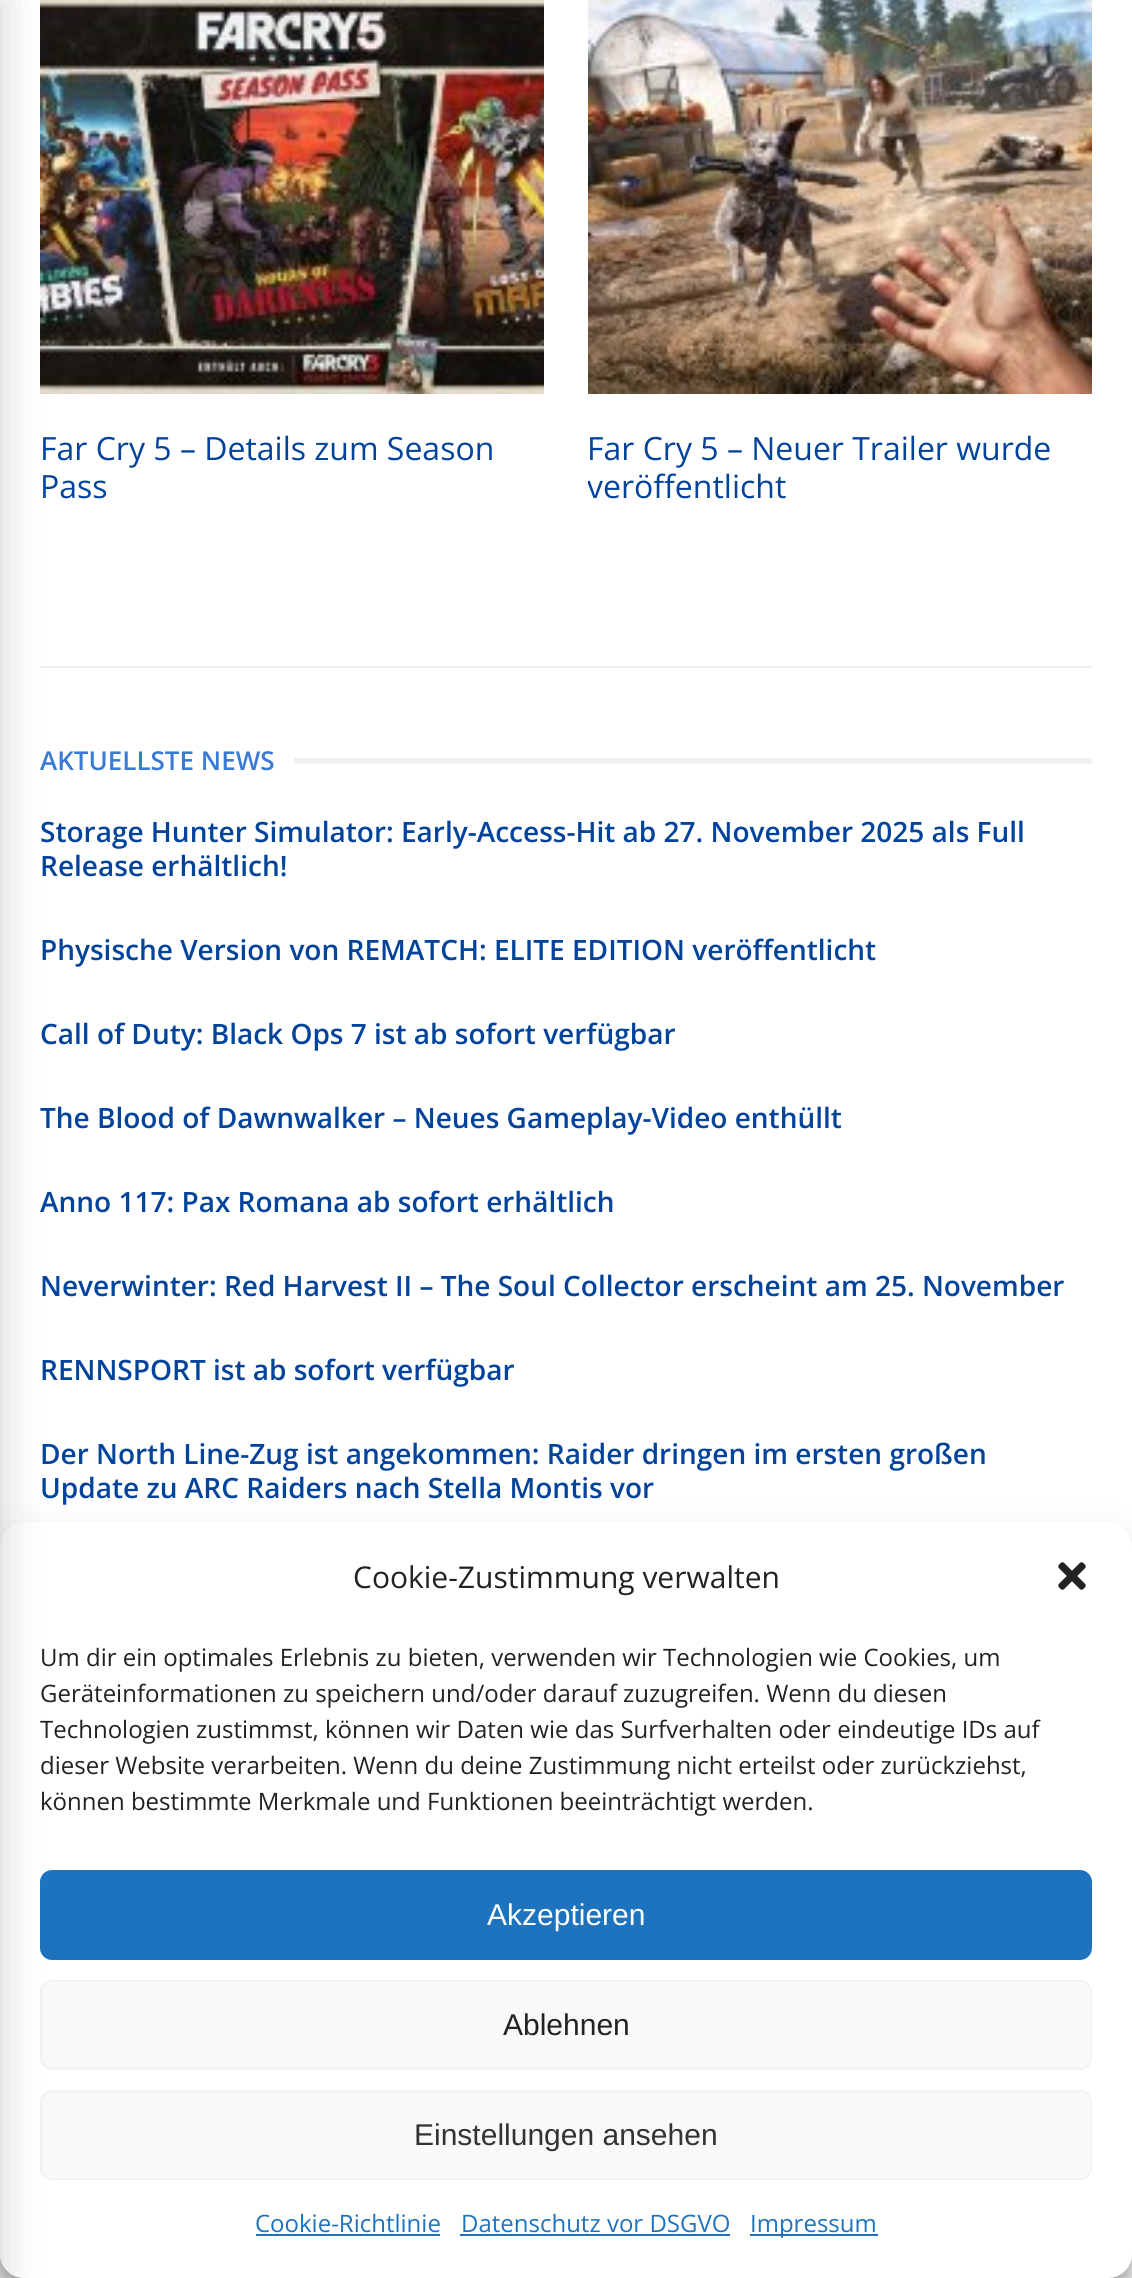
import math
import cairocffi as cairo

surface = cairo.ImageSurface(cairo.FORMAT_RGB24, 1132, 2278)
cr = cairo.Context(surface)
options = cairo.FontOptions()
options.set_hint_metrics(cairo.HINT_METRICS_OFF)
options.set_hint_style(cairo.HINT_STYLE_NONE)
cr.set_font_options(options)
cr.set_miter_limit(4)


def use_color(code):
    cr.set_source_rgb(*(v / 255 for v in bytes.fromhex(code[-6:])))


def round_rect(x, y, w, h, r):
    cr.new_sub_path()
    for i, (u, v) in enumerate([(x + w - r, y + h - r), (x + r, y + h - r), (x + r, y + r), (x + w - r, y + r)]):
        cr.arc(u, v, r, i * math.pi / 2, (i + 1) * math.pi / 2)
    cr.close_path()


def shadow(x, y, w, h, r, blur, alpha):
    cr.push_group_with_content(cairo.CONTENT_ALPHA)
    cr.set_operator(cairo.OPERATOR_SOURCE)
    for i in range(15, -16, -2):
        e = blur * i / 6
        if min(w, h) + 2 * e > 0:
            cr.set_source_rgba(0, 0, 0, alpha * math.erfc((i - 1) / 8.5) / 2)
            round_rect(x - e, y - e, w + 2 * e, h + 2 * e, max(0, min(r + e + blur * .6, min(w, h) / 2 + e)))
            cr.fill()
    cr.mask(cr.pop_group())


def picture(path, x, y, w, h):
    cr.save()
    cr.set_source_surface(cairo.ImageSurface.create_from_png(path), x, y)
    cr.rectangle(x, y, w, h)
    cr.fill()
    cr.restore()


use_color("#ffffff")
cr.paint()
picture("img1.png", 40, 0, 504, 394)
use_color("#eeeeee")
cr.rectangle(40, 666, 1052, 2)
cr.fill()
use_color("#000000")
shadow(0, 1534, 1132, 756, 24, 6, 0.23)
shadow(0, 1542, 1132, 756, 24, 20, 0.19)
use_color("#ffffff")
round_rect(0, 1522, 1132, 756, 24)
cr.fill()
use_color("#1e73be")
round_rect(41, 1871, 1050, 88, 11)
cr.fill_preserve()
cr.stroke()
use_color("#f9f9f9")
round_rect(41, 1981, 1050, 88, 11)
cr.fill_preserve()
use_color("#f2f2f2")
cr.stroke()
use_color("#f9f9f9")
round_rect(41, 2091, 1050, 88, 11)
cr.fill_preserve()
use_color("#f2f2f2")
cr.stroke()
use_color("#000000")
shadow(-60, 0, 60, 2278, 0, 20, 0.2)
cr.select_font_face("Open Sans")
cr.set_font_size(32)
use_color("#02439b")
cr.move_to(40, 460)
cr.show_text("Far Cry 5 – Details zum Season")
cr.move_to(40, 498)
cr.show_text("Pass")
picture("img2.png", 588, 0, 504, 394)
cr.move_to(587, 460)
cr.show_text("Far Cry 5 – Neuer Trailer wurde")
cr.save()
cr.rectangle(588, 0, 504, 506)
cr.clip()
cr.move_to(587, 498)
cr.show_text("veröffentlicht")
cr.restore()
cr.select_font_face("Open Sans SemiBold")
cr.set_font_size(26)
use_color("#397ad6")
cr.move_to(40, 770)
cr.show_text("AKTUELLSTE NEWS")
use_color("#f1f1f1")
cr.rectangle(294, 758, 798, 6)
cr.fill()
cr.set_font_size(28)
use_color("#02439b")
cr.move_to(40, 842)
cr.show_text("Storage Hunter Simulator: Early-Access-Hit ab 27. November 2025 als Full")
cr.move_to(40, 876)
cr.show_text("Release erhältlich!")
cr.move_to(40, 960)
cr.show_text("Physische Version von REMATCH: ELITE EDITION veröffentlicht")
cr.move_to(40, 1044)
cr.show_text("Call of Duty: Black Ops 7 ist ab sofort verfügbar")
cr.move_to(40, 1128)
cr.show_text("The Blood of Dawnwalker – Neues Gameplay-Video enthüllt")
cr.move_to(40, 1212)
cr.show_text("Anno 117: Pax Romana ab sofort erhältlich")
cr.move_to(40, 1296)
cr.show_text("Neverwinter: Red Harvest II – The Soul Collector erscheint am 25. November")
cr.move_to(40, 1380)
cr.show_text("RENNSPORT ist ab sofort verfügbar")
cr.move_to(40, 1464)
cr.show_text("Der North Line-Zug ist angekommen: Raider dringen im ersten großen")
cr.move_to(40, 1498)
cr.show_text("Update zu ARC Raiders nach Stella Montis vor")
cr.select_font_face("Open Sans")
cr.set_font_size(30)
use_color("#222222")
cr.move_to(353, 1588)
cr.show_text("Cookie-Zustimmung verwalten")
picture("img3.png", 1058, 1562, 28, 28)
cr.set_font_size(24)
cr.move_to(40, 1666)
cr.show_text("Um dir ein optimales Erlebnis zu bieten, verwenden wir Technologien wie Cookies, um")
cr.move_to(40, 1702)
cr.show_text("Geräteinformationen zu speichern und/oder darauf zuzugreifen. Wenn du diesen")
cr.move_to(40, 1738)
cr.show_text("Technologien zustimmst, können wir Daten wie das Surfverhalten oder eindeutige IDs auf")
cr.move_to(40, 1774)
cr.show_text("dieser Website verarbeiten. Wenn du deine Zustimmung nicht erteilst oder zurückziehst,")
cr.move_to(40, 1810)
cr.show_text("können bestimmte Merkmale und Funktionen beeinträchtigt werden.")
cr.select_font_face("Liberation Sans")
cr.set_font_size(30)
use_color("#ffffff")
cr.move_to(487, 1925)
cr.show_text("Akzeptieren")
use_color("#222222")
cr.move_to(503, 2035)
cr.show_text("Ablehnen")
use_color("#333333")
cr.move_to(414, 2145)
cr.show_text("Einstellungen ansehen")
cr.select_font_face("Open Sans")
cr.set_font_size(24)
use_color("#1e73be")
cr.move_to(255, 2232)
cr.show_text("Cookie-Richtlinie")
cr.rectangle(256, 2234, 184, 2)
cr.fill()
cr.move_to(461, 2232)
cr.show_text("Datenschutz vor DSGVO")
cr.rectangle(460, 2234, 270, 2)
cr.fill()
cr.rectangle(750, 2234, 128, 2)
cr.fill()
cr.move_to(750, 2232)
cr.show_text("Impressum")
surface.write_to_png("result.png")
